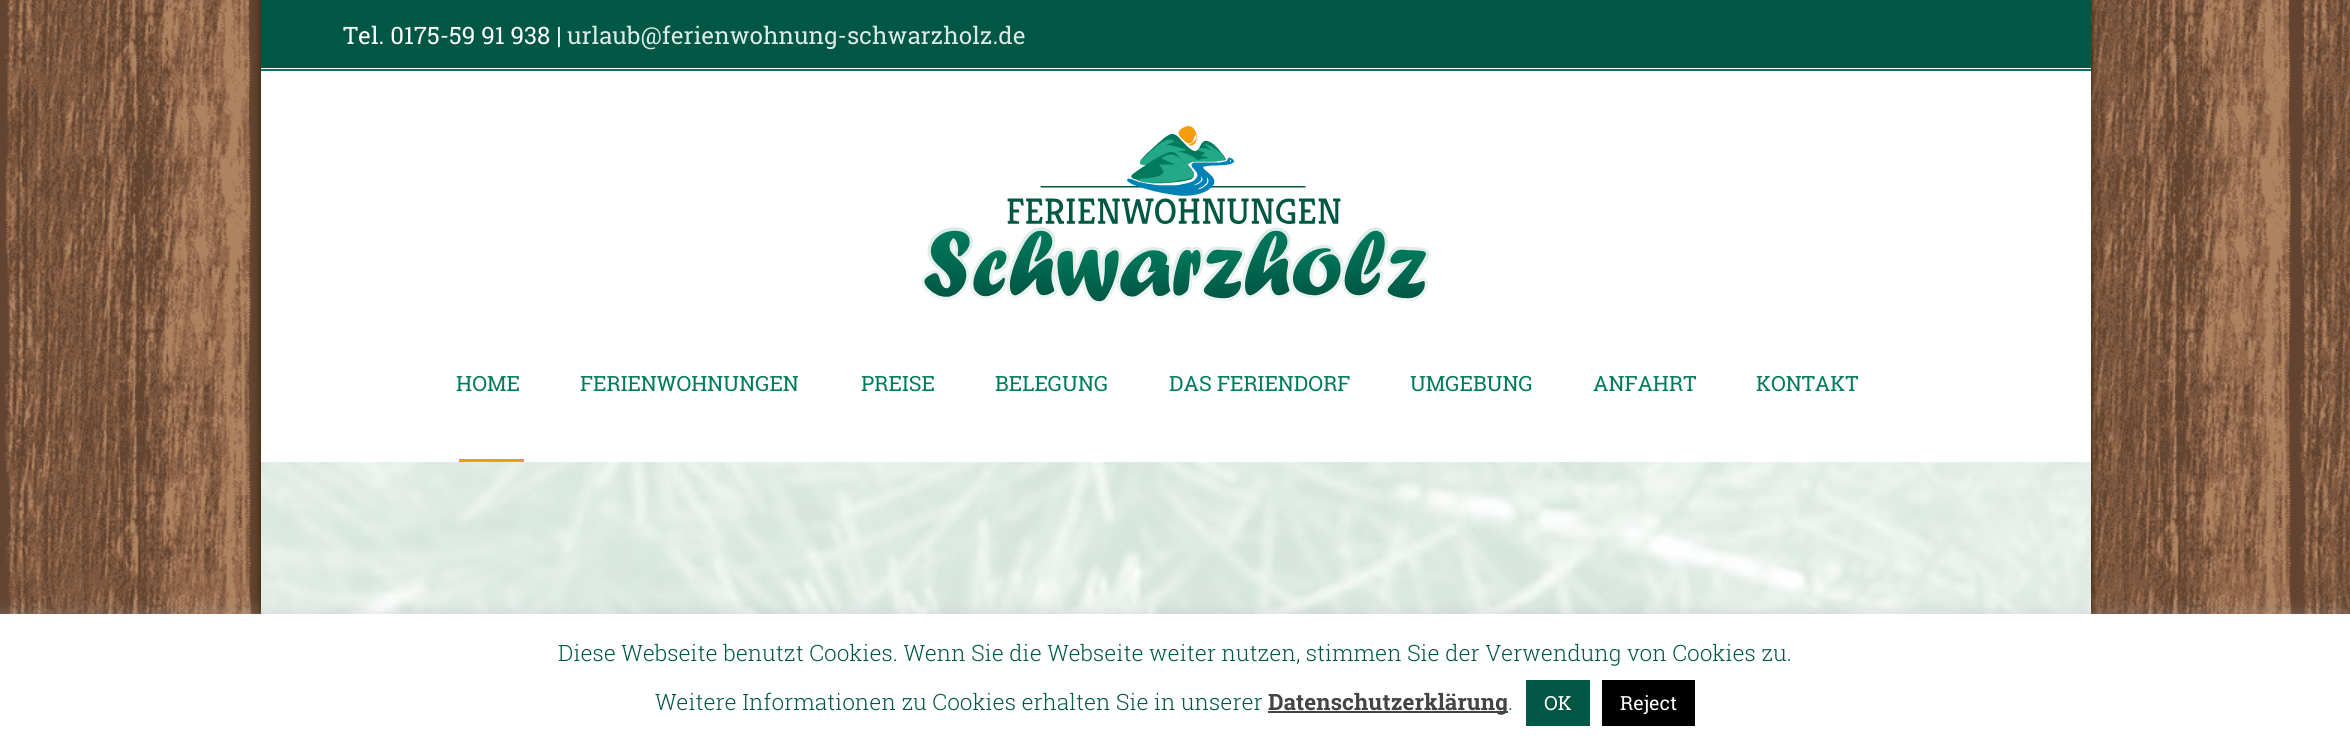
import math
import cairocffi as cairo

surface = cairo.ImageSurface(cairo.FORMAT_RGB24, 2350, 744)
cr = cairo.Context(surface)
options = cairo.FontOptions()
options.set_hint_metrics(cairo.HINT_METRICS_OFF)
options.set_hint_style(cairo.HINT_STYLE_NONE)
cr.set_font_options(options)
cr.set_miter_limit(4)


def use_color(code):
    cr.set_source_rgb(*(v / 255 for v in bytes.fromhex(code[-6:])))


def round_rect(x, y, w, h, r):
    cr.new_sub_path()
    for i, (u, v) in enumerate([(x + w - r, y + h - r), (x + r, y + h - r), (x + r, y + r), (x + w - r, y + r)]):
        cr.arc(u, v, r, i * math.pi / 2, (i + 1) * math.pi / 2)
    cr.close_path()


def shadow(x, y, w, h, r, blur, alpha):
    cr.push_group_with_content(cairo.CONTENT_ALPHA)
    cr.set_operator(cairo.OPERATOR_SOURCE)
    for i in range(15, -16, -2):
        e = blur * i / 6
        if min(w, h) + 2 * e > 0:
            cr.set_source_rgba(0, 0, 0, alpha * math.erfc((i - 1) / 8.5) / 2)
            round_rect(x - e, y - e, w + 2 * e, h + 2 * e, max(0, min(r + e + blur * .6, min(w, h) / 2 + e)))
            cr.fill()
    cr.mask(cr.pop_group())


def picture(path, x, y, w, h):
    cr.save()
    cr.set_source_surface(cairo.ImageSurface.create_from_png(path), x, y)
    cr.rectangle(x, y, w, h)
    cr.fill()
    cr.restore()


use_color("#ffffff")
cr.paint()
picture("img1.png", 0, 0, 2350, 614)
use_color("#311e00")
shadow(261, 0, 1830, 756, 0, 4, 1)
use_color("#ffffff")
cr.rectangle(261, 68, 1830, 394)
cr.fill()
use_color("#005743")
cr.rectangle(261, 0, 1830, 68)
cr.fill()
cr.select_font_face("Roboto Slab")
cr.set_font_size(24)
use_color("#ffffff")
cr.move_to(343, 44)
cr.show_text("Tel. 0175-59 91 938 |")
use_color("#dbeae6")
cr.move_to(567, 44)
cr.show_text("urlaub@ferienwohnung-schwarzholz.de")
use_color("#007a5c")
cr.rectangle(261, 69, 1830, 2)
cr.fill()
picture("img2.png", 921, 126, 508, 179)
cr.set_font_size(21)
cr.move_to(456, 391)
cr.show_text("HOME")
cr.move_to(580, 391)
cr.show_text("FERIENWOHNUNGEN")
cr.move_to(861, 391)
cr.show_text("PREISE")
cr.move_to(995, 391)
cr.show_text("BELEGUNG")
cr.move_to(1169, 391)
cr.show_text("DAS FERIENDORF")
cr.move_to(1410, 391)
cr.show_text("UMGEBUNG")
cr.move_to(1593, 391)
cr.show_text("ANFAHRT")
cr.move_to(1756, 391)
cr.show_text("KONTAKT")
use_color("#f59d0e")
cr.rectangle(459, 459, 65, 3)
cr.fill()
picture("img3.png", 261, 462, 1830, 152)
use_color("#acabab")
shadow(0, 612, 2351, 131, 0, 7.5, 0.3)
use_color("#ffffff")
cr.rectangle(0, 614, 2350, 130)
cr.fill()
cr.select_font_face("Roboto Slab Light")
cr.set_font_size(22.5)
use_color("#005743")
cr.move_to(558, 661)
cr.show_text("Diese Webseite benutzt Cookies. Wenn Sie die Webseite weiter nutzen, stimmen Sie der Verwendung von Cookies zu.")
cr.move_to(655, 710)
cr.show_text("Weitere Informationen zu Cookies erhalten Sie in unserer")
use_color("#444444")
cr.rectangle(1268, 711, 240, 2)
cr.fill()
cr.select_font_face("Roboto Slab", cairo.FONT_SLANT_NORMAL, cairo.FONT_WEIGHT_BOLD)
cr.move_to(1268, 710)
cr.show_text("Datenschutzerklärung")
cr.select_font_face("Roboto Slab Light")
use_color("#005743")
cr.move_to(1508, 710)
cr.show_text(".")
cr.rectangle(1526, 680, 64, 46)
cr.fill()
cr.select_font_face("Roboto Slab")
cr.set_font_size(19.5)
use_color("#ffffff")
cr.move_to(1544, 710)
cr.show_text("OK")
use_color("#000000")
cr.rectangle(1602, 680, 93, 46)
cr.fill()
use_color("#ffffff")
cr.move_to(1620, 710)
cr.show_text("Reject")
surface.write_to_png("result.png")
